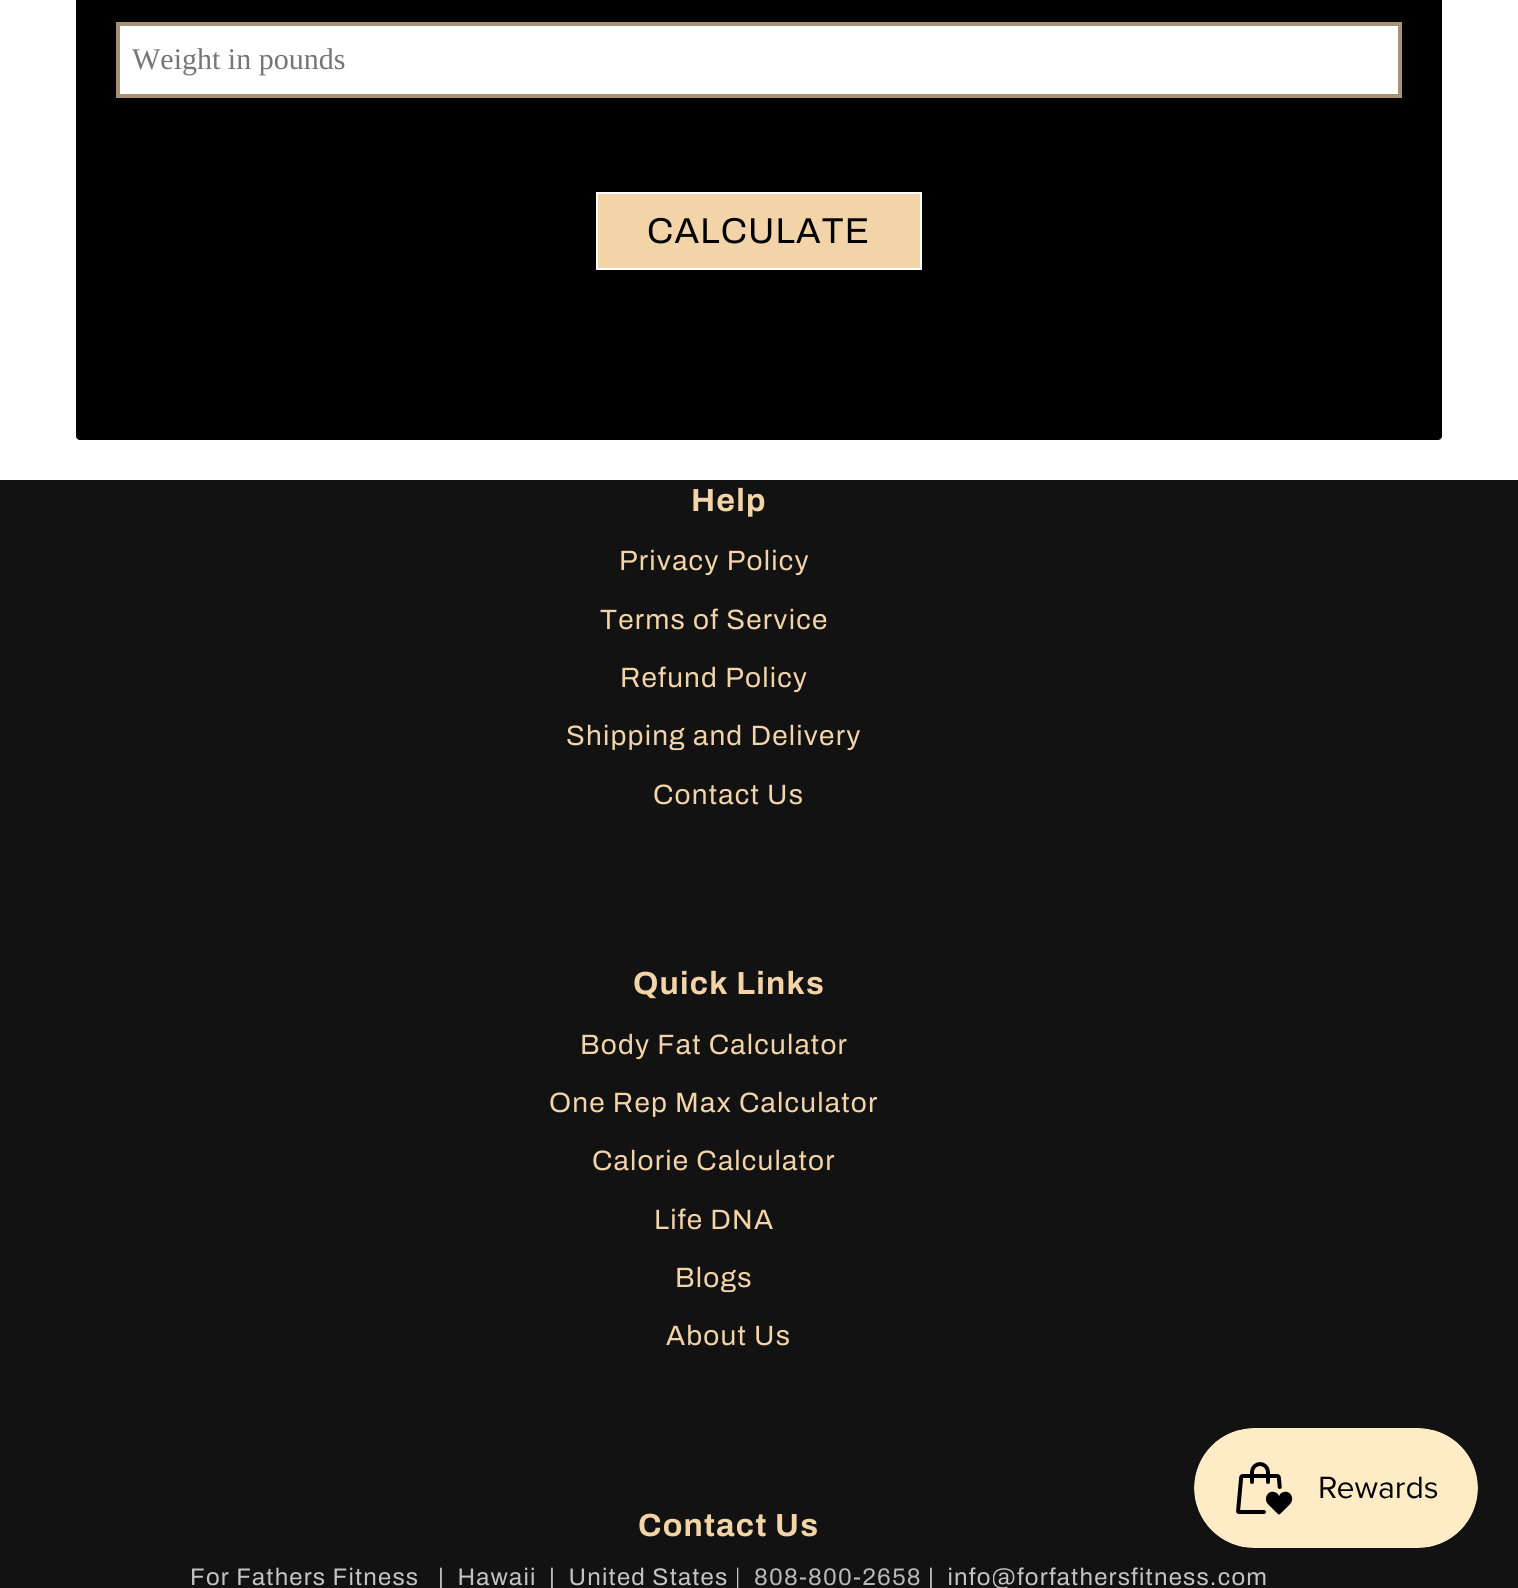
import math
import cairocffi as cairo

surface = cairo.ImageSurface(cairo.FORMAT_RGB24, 1518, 1588)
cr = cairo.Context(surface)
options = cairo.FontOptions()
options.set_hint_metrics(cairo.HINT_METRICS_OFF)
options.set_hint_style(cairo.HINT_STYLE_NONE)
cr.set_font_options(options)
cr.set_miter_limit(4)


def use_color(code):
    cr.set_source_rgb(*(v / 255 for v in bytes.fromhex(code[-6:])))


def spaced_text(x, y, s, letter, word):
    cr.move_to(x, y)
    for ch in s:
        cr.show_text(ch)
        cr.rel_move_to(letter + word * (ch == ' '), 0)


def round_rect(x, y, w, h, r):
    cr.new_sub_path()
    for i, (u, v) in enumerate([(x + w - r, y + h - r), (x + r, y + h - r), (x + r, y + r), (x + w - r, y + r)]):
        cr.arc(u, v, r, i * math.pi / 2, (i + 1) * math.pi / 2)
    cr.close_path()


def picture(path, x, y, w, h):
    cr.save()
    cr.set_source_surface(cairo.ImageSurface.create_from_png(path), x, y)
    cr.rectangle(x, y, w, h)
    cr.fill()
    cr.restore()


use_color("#ffffff")
cr.paint()
use_color("#000000")
round_rect(76, -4, 1366, 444, 4)
cr.fill()
use_color("#ffffff")
cr.rectangle(118, 24, 1282, 72)
cr.fill_preserve()
use_color("#a89274")
cr.set_line_width(4)
cr.stroke()
cr.select_font_face("Liberation Serif")
cr.set_font_size(30)
use_color("#757575")
cr.move_to(132, 69)
cr.show_text("Weight in pounds")
use_color("#f3d4a8")
cr.rectangle(597, 193, 324, 76)
cr.fill_preserve()
use_color("#ffffff")
cr.set_line_width(2)
cr.stroke()
cr.select_font_face("Archivo")
cr.set_font_size(36)
use_color("#000000")
spaced_text(647, 243, "CALCULATE", 1.2, 0)
use_color("#121212")
cr.rectangle(0, 480, 1518, 1108)
cr.fill()
cr.select_font_face("Archivo", cairo.FONT_SLANT_NORMAL, cairo.FONT_WEIGHT_BOLD)
cr.set_font_size(32)
use_color("#f3d4a8")
spaced_text(691, 511, "Help", 1.2, 0)
cr.select_font_face("Archivo")
cr.set_font_size(28)
spaced_text(619, 570, "Privacy Policy", 1.2, 0)
spaced_text(600, 629, "Terms of Service", 1.2, 0)
spaced_text(620, 687, "Refund Policy", 1.2, 0)
spaced_text(566, 745, "Shipping and Delivery", 1.2, 0)
spaced_text(653, 804, "Contact Us", 1.2, 0)
cr.select_font_face("Archivo", cairo.FONT_SLANT_NORMAL, cairo.FONT_WEIGHT_BOLD)
cr.set_font_size(32)
spaced_text(633, 994, "Quick Links", 1.2, 0)
cr.select_font_face("Archivo")
cr.set_font_size(28)
spaced_text(580, 1054, "Body Fat Calculator", 1.2, 0)
spaced_text(549, 1112, "One Rep Max Calculator", 1.2, 0)
spaced_text(592, 1170, "Calorie Calculator", 1.2, 0)
spaced_text(654, 1229, "Life DNA", 1.2, 0)
spaced_text(675, 1287, "Blogs", 1.2, 0)
spaced_text(666, 1345, "About Us", 1.2, 0)
cr.select_font_face("Archivo", cairo.FONT_SLANT_NORMAL, cairo.FONT_WEIGHT_BOLD)
cr.set_font_size(32)
spaced_text(638, 1536, "Contact Us", 1.2, 0)
cr.select_font_face("Archivo")
cr.set_font_size(24)
use_color("#c4c4c4")
spaced_text(190, 1585, "For Fathers Fitness   |  Hawaii  |  United States |", 1.2, 0)
use_color("#b8b8b8")
spaced_text(754, 1585, "808-800-2658", 1.2, 0)
use_color("#c4c4c4")
spaced_text(928, 1585, "|  info@forfathersfitness.com", 1.2, 0)
picture("img1.png", 1194, 1428, 284, 120)
surface.write_to_png("result.png")
